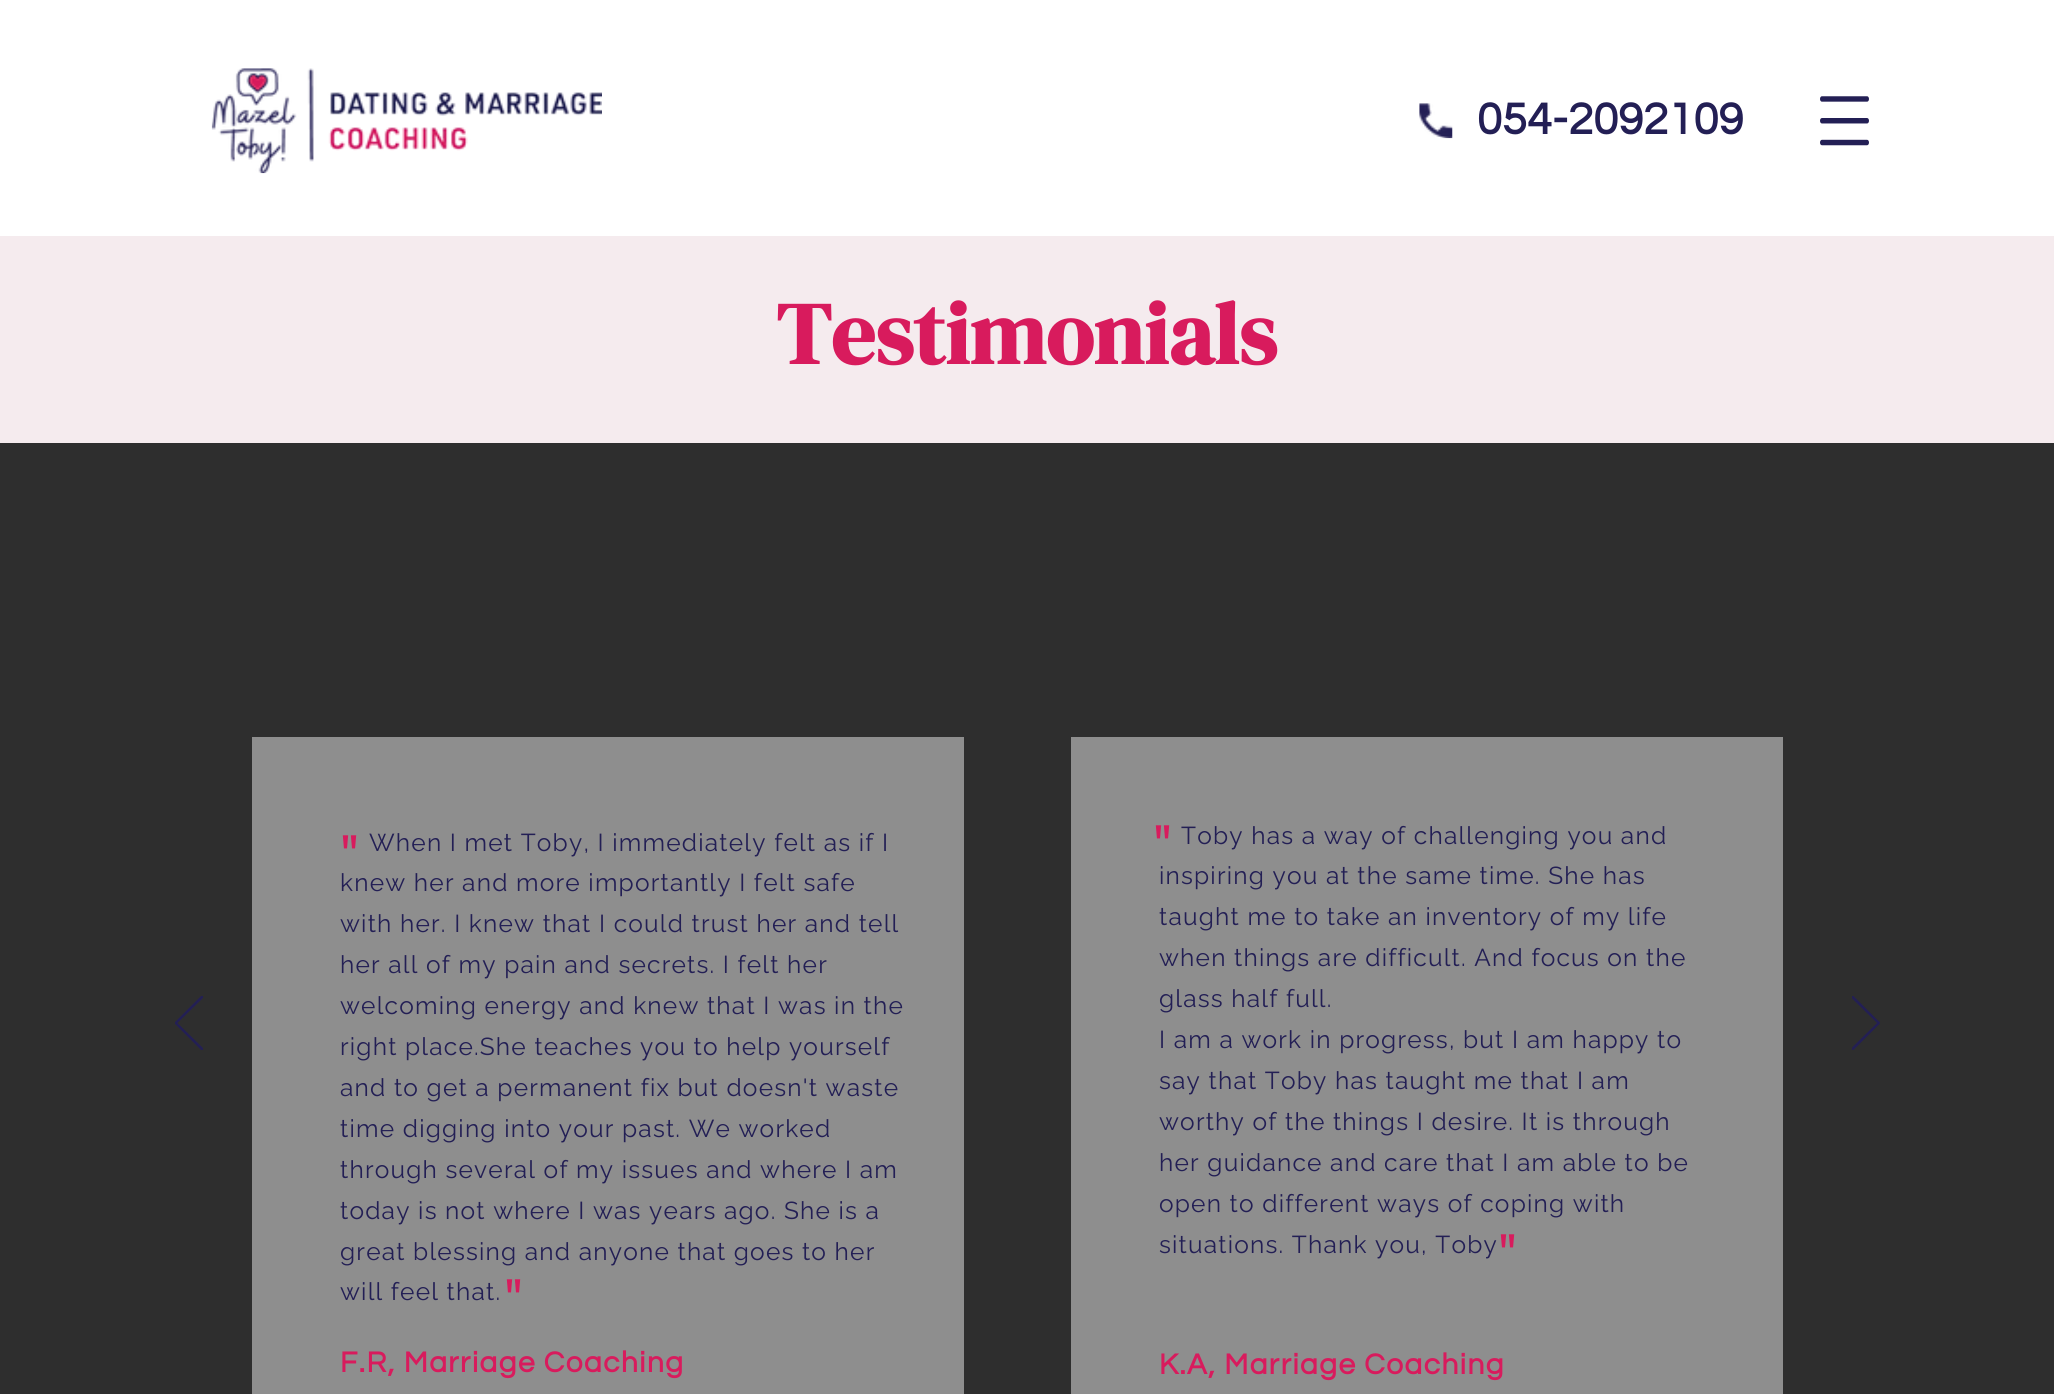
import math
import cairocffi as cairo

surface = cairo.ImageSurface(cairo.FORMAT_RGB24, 2054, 1394)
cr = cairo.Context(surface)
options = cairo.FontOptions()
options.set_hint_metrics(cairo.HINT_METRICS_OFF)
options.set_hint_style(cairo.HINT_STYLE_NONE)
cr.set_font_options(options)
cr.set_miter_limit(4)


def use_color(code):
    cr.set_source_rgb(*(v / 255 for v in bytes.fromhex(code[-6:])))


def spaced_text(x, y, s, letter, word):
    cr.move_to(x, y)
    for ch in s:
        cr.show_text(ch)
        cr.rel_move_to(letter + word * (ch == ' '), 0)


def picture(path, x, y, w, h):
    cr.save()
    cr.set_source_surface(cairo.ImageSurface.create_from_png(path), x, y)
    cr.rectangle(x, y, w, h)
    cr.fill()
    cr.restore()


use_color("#ffffff")
cr.paint()
picture("img1.png", 211, 68, 391, 106)
picture("img2.png", 1419, 103, 34, 36)
cr.select_font_face("Questrial", cairo.FONT_SLANT_NORMAL, cairo.FONT_WEIGHT_BOLD)
cr.set_font_size(45.5)
use_color("#231f55")
cr.move_to(1477, 134)
cr.show_text("054-2092109")
picture("img3.png", 1820, 96, 49, 50)
use_color("#f5ebee")
cr.rectangle(0, 236, 2054, 207)
cr.fill()
cr.select_font_face("DM Serif Display", cairo.FONT_SLANT_NORMAL, cairo.FONT_WEIGHT_BOLD)
cr.set_font_size(87.5)
use_color("#d81b5d")
cr.move_to(776, 364)
cr.show_text("Testimonials")
use_color("#2e2e2e")
cr.rectangle(0, 443, 2054, 951)
cr.fill()
cr.save()
cr.rectangle(175, 996, 28, 54)
cr.clip()
cr.new_path()
cr.move_to(202, 1050)
cr.line_to(175, 1023)
cr.line_to(202, 996)
cr.line_to(203, 997)
cr.line_to(176.5, 1023)
cr.line_to(203, 1049)
cr.close_path()
use_color("#231f55")
cr.set_line_width(1.3)
cr.stroke()
cr.restore()
use_color("#8e8e8e")
cr.rectangle(252, 737, 712, 657)
cr.fill()
cr.select_font_face("Raleway")
cr.set_font_size(24.5)
use_color("#231f55")
spaced_text(369, 851, "When I met Toby, I immediately felt as if I", 1.2, 0)
spaced_text(340, 891, "knew her and more importantly I felt safe", 1.2, 0)
spaced_text(340, 932, "with her. I knew that I could trust her and tell", 1.2, 0)
spaced_text(340, 973, "her all of my pain and secrets. I felt her", 1.2, 0)
spaced_text(340, 1014, "welcoming energy and knew that I was in the", 1.2, 0)
spaced_text(340, 1055, "right place.She teaches you to help yourself", 1.2, 0)
spaced_text(340, 1096, "and to get a permanent fix but doesn't waste", 1.2, 0)
spaced_text(340, 1137, "time digging into your past. We worked", 1.2, 0)
spaced_text(340, 1178, "through several of my issues and where I am", 1.2, 0)
spaced_text(340, 1219, "today is not where I was years ago. She is a", 1.2, 0)
spaced_text(340, 1260, "great blessing and anyone that goes to her", 1.2, 0)
spaced_text(340, 1300, "will feel that.", 1.2, 0)
cr.select_font_face("Questrial")
cr.set_font_size(60)
use_color("#d81b5d")
spaced_text(340, 875, "\"", 3, 0)
spaced_text(504, 1319, "\"", 3, 0)
cr.select_font_face("Questrial", cairo.FONT_SLANT_NORMAL, cairo.FONT_WEIGHT_BOLD)
cr.set_font_size(29.75)
spaced_text(340, 1372, "F.R, Marriage Coaching", 1.5, 0)
use_color("#8e8e8e")
cr.rectangle(1071, 737, 712, 657)
cr.fill()
cr.select_font_face("Questrial")
cr.set_font_size(60)
use_color("#d81b5d")
spaced_text(1153, 865, "\"", 3, 0)
cr.select_font_face("Raleway")
cr.set_font_size(24.5)
use_color("#231f55")
spaced_text(1181, 844, "Toby has a way of challenging you and", 1.2, 0)
spaced_text(1159, 884, "inspiring you at the same time. She has", 1.2, 0)
spaced_text(1159, 925, "taught me to take an inventory of my life", 1.2, 0)
spaced_text(1159, 966, "when things are difficult. And focus on the", 1.2, 0)
spaced_text(1159, 1007, "glass half full.", 1.2, 0)
spaced_text(1159, 1048, "I am a work in progress, but I am happy to", 1.2, 0)
spaced_text(1159, 1089, "say that Toby has taught me that I am", 1.2, 0)
spaced_text(1159, 1130, "worthy of the things I desire. It is through", 1.2, 0)
spaced_text(1159, 1171, "her guidance and care that I am able to be", 1.2, 0)
spaced_text(1159, 1212, "open to different ways of coping with", 1.2, 0)
spaced_text(1159, 1253, "situations. Thank you, Toby", 1.2, 0)
cr.select_font_face("Questrial")
cr.set_font_size(60)
use_color("#d81b5d")
spaced_text(1498, 1274, "\"", 3, 0)
cr.select_font_face("Questrial", cairo.FONT_SLANT_NORMAL, cairo.FONT_WEIGHT_BOLD)
cr.set_font_size(29.75)
spaced_text(1159, 1374, "K.A, Marriage Coaching", 1.5, 0)
cr.save()
cr.rectangle(1852, 996, 28, 54)
cr.clip()
cr.new_path()
cr.move_to(1852.5, 1050)
cr.line_to(1879.5, 1023)
cr.line_to(1852.5, 996)
cr.line_to(1851.5, 997)
cr.line_to(1878, 1023)
cr.line_to(1851.5, 1049)
cr.close_path()
use_color("#231f55")
cr.set_line_width(1.3)
cr.stroke()
cr.restore()
surface.write_to_png("result.png")
